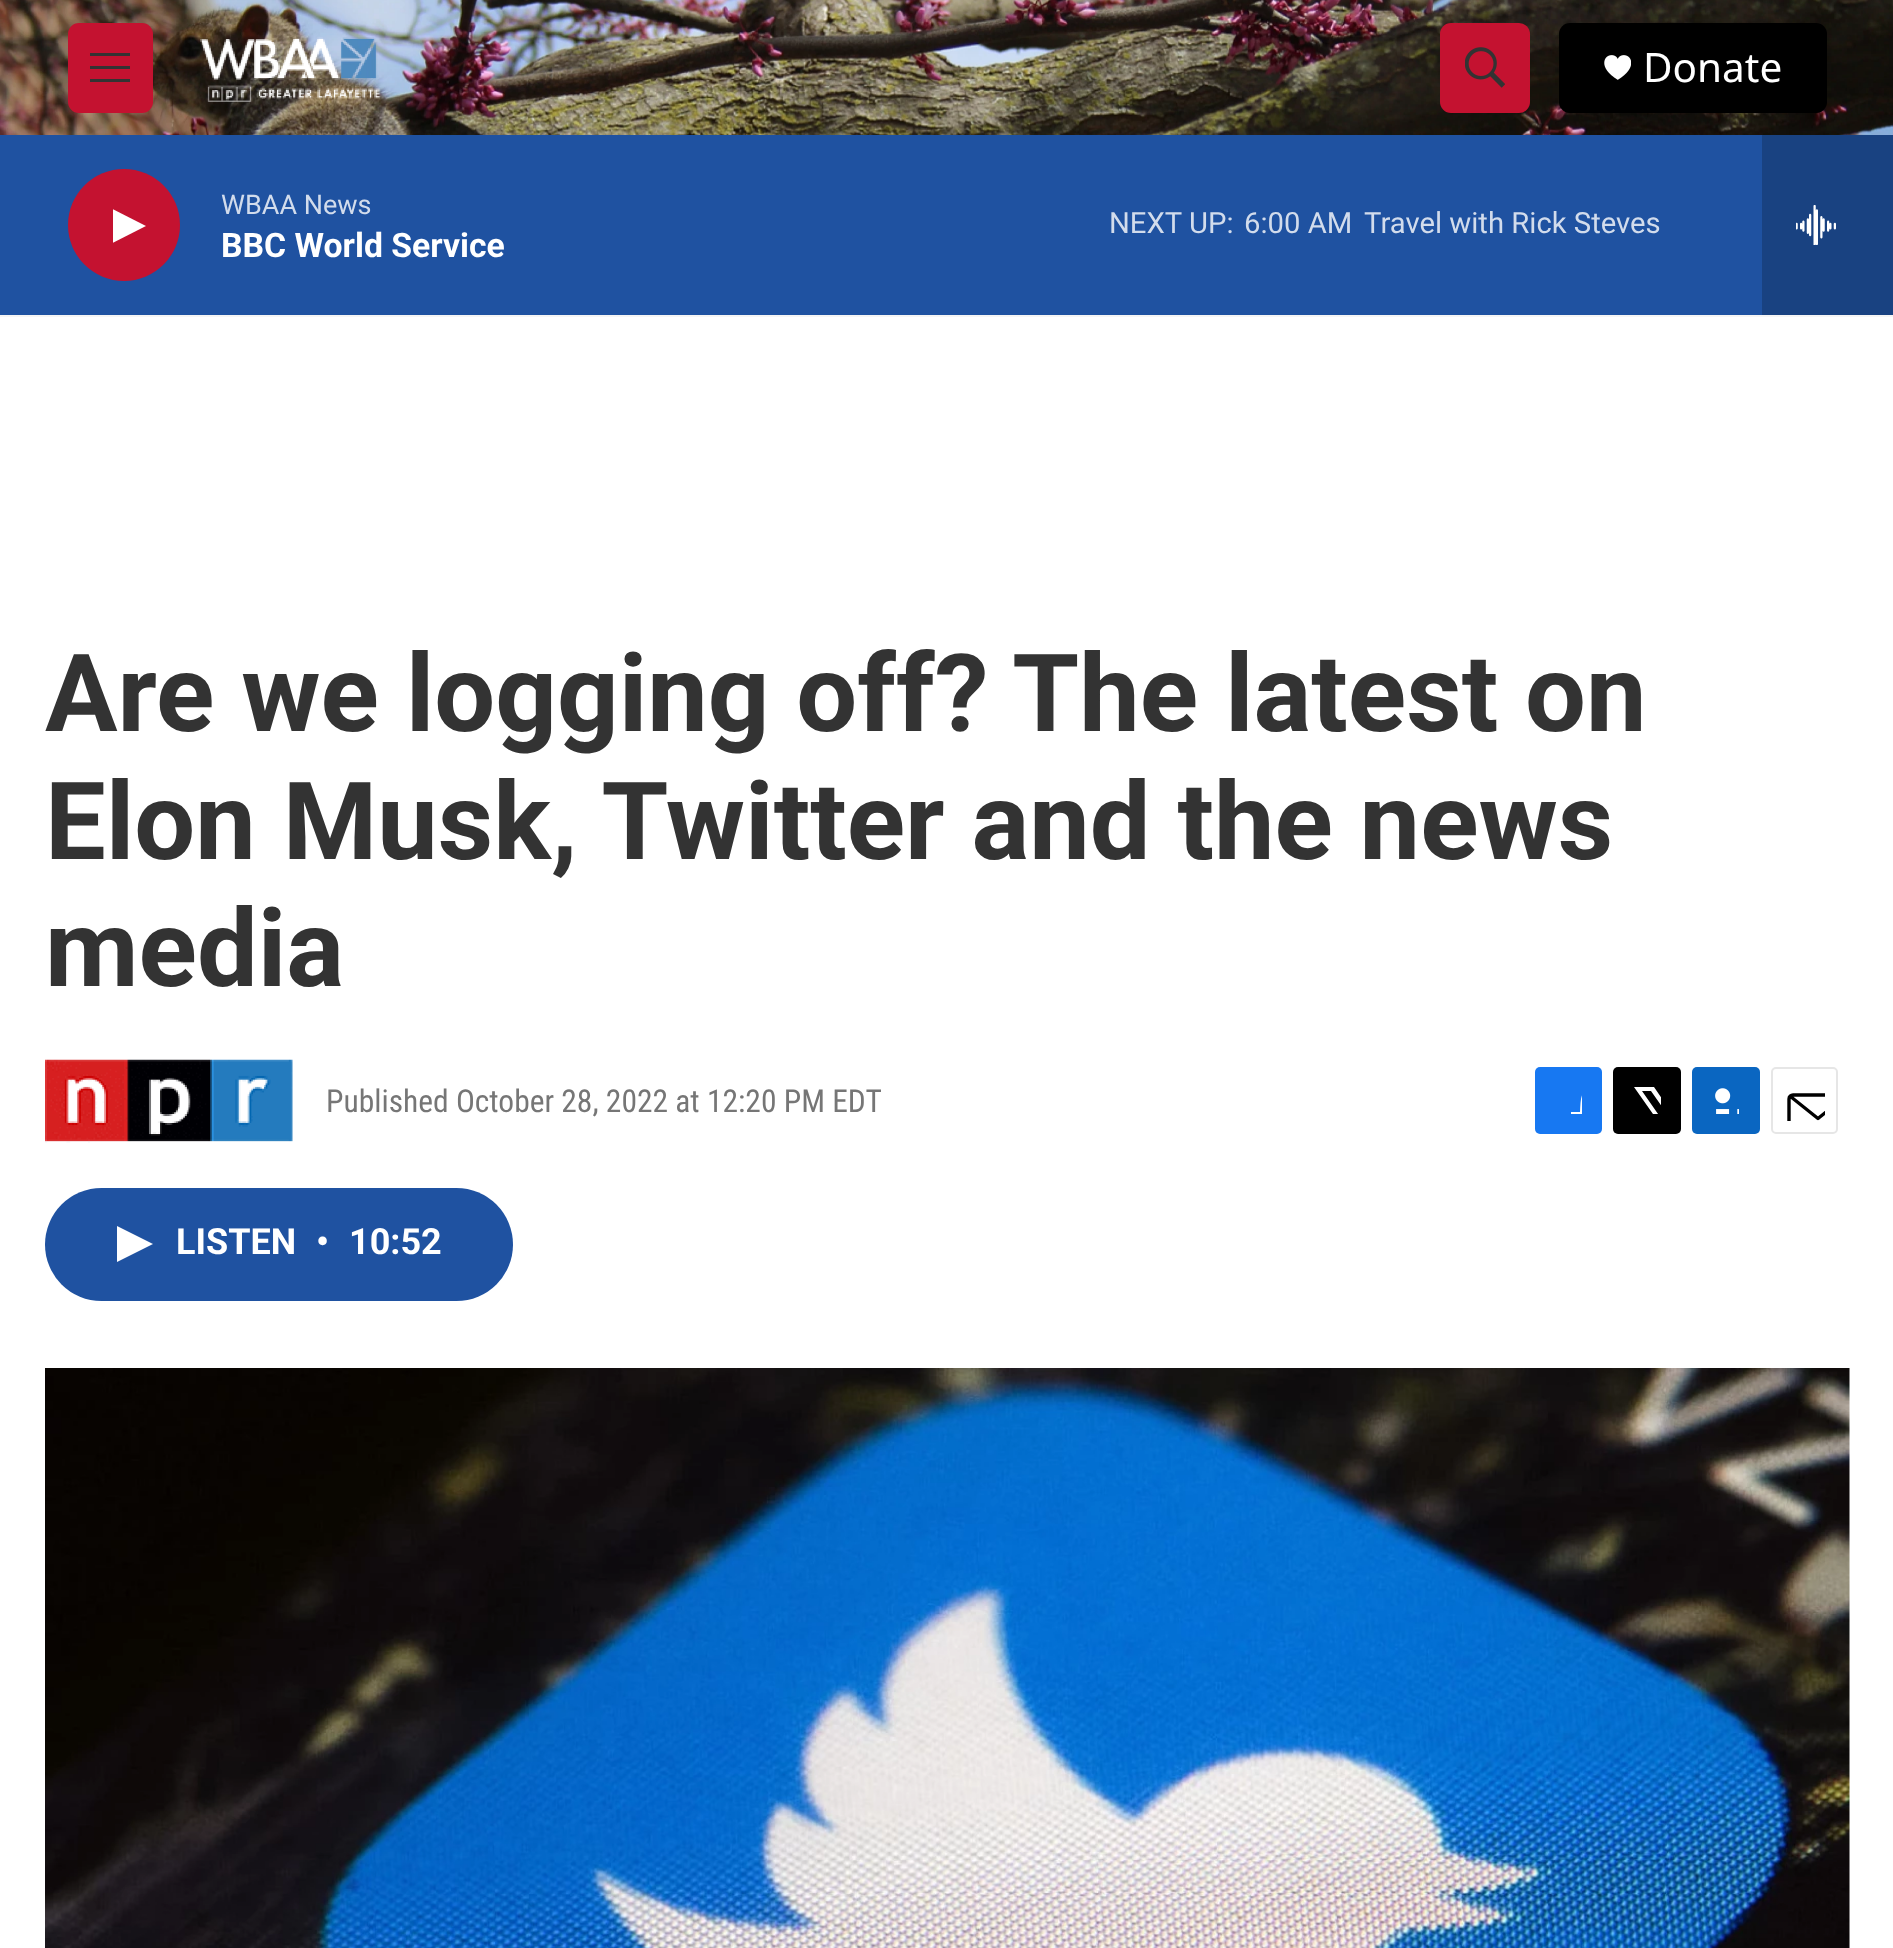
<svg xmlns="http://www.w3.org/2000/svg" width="1893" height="1948">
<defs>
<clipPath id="clip1"><rect x="113" y="205" width="33" height="43"/></clipPath>
<clipPath id="clip2"><rect x="1555" y="1087" width="27" height="27"/></clipPath>
<clipPath id="clip3"><rect x="1634" y="1087" width="27" height="27"/></clipPath>
<clipPath id="clip4"><rect x="1784" y="1080" width="41" height="41"/></clipPath>
</defs>
<rect width="100%" height="100%" fill="#fff"/>
<rect y="315" width="1893" height="2" fill="#f5f5f5"/>
<image x="0" y="0" width="1893" height="135" href="media/1.png"/>
<rect x="68" y="23" width="85" height="90" rx="11" fill="#c41230"/>
<path d="M90 69v-3h40v3zm0-13v-3h40v3zm0 26v-3h40v3z" fill="#333" fill-rule="evenodd"/>
<image x="200" y="37" width="181" height="65" href="media/2.png"/>
<rect x="1440" y="23" width="90" height="90" rx="11" fill="#c41230"/>
<image x="1465" y="47" width="40" height="41" href="media/3.png"/>
<rect x="1559" y="23" width="268" height="90" rx="11" fill="#000"/>
<image x="1604" y="55" width="27" height="25" href="media/4.png"/>
<text x="1643" y="82" style="font-family:Noto Sans;font-size:40.5px;fill:#fff">Donate</text>
<rect y="135" width="1762" height="180" fill="#1f52a1"/>
<circle cx="124" cy="225" r="56" fill="#c41230"/>
<g clip-path="url(#clip1)">
<path d="M112.5 209l33.5 17l-33.5 17z" fill="#fff"/>
</g>
<text x="221" y="214" style="font-family:Roboto;font-size:27px;fill:#d2dcec">WBAA News</text>
<text x="221" y="257" style="font-family:'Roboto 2';font-size:33.75px;font-weight:bold;fill:#fff">BBC World Service</text>
<text x="1109" y="233" style="font-family:Roboto;font-size:29.25px;fill:#d2dcec">NEXT UP:</text>
<text x="1244" y="233" style="font-family:Roboto;font-size:29.25px;fill:#d2dcec">6:00 AM</text>
<text x="1364" y="233" style="font-family:Roboto;font-size:29.25px;fill:#d2dcec">Travel with Rick Steves</text>
<rect x="1762" y="135" width="131" height="180" fill="#194281"/>
<image x="1796" y="205" width="40" height="40" href="media/5.png"/>
<text x="45" y="731" style="font-family:Roboto;font-size:108px;font-weight:bold;fill:#333">Are we logging off? The latest on</text>
<text x="45" y="859" style="font-family:Roboto;font-size:108px;font-weight:bold;fill:#333">Elon Musk, Twitter and the news</text>
<text x="45" y="986" style="font-family:Roboto;font-size:108px;font-weight:bold;fill:#333">media</text>
<image x="45" y="1059" width="248" height="84" href="media/6.png"/>
<text x="326" y="1112" style="font-family:Roboto Condensed;font-size:31.5px;fill:#767676">Published October 28, 2022 at 12:20 PM EDT</text>
<rect x="1535" y="1067" width="67" height="67" rx="5" fill="#1778f2"/>
<g clip-path="url(#clip2)">
<path d="M1592 1134h-12v-11h-9v-11h9c1-17 0-26 22-24v10c-13 0-10 4-10 14h10v6l-1 5h-9z" fill="#fff"/>
</g>
<rect x="1613" y="1067" width="68" height="67" rx="5" fill="#000"/>
<g clip-path="url(#clip3)">
<path d="M1674 1115l7 11c0 2 0 4-1 6l-29-41h-9l30 43h-5l-4-6l-5 6h-7l9-10l-26-37h20l17 25l10-12v7z" fill="#fff"/>
</g>
<rect x="1692" y="1067" width="68" height="67" rx="5" fill="#0a66c1"/>
<image x="1715" y="1088" width="24" height="26" href="media/7.png"/>
<rect x="1772" y="1068" width="65" height="65" rx="4" fill="none" stroke="#e6e6e6" stroke-width="2"/>
<g clip-path="url(#clip4)">
<path d="M1847 1129.5c0 2-2 4-4 4h-50c-2 0-4-2-4-4v-30.5c0-2.5 2-4 4-4h50c2 0 4 1.5 4 4zm-1.5-33l-27.5 22l-27.5-22" fill="none" stroke="#000" stroke-width="3.4" stroke-linecap="round" stroke-linejoin="round"/>
</g>
<rect x="45" y="1188" width="468" height="113" rx="56.5" fill="#1f52a1"/>
<path d="M117 1226l36 18l-36 18z" fill="#fff"/>
<text x="176" y="1254" style="font-family:'Roboto 2';font-size:36px;font-weight:bold;fill:#fff">LISTEN</text>
<text x="316" y="1254" style="font-family:'Roboto 2';font-size:36px;font-weight:bold;fill:#fff">•</text>
<text x="349" y="1254" style="font-family:'Roboto 2';font-size:36px;font-weight:bold;fill:#fff">10:52</text>
<image x="45" y="1368" width="1805" height="580" href="media/8.png"/>
</svg>
